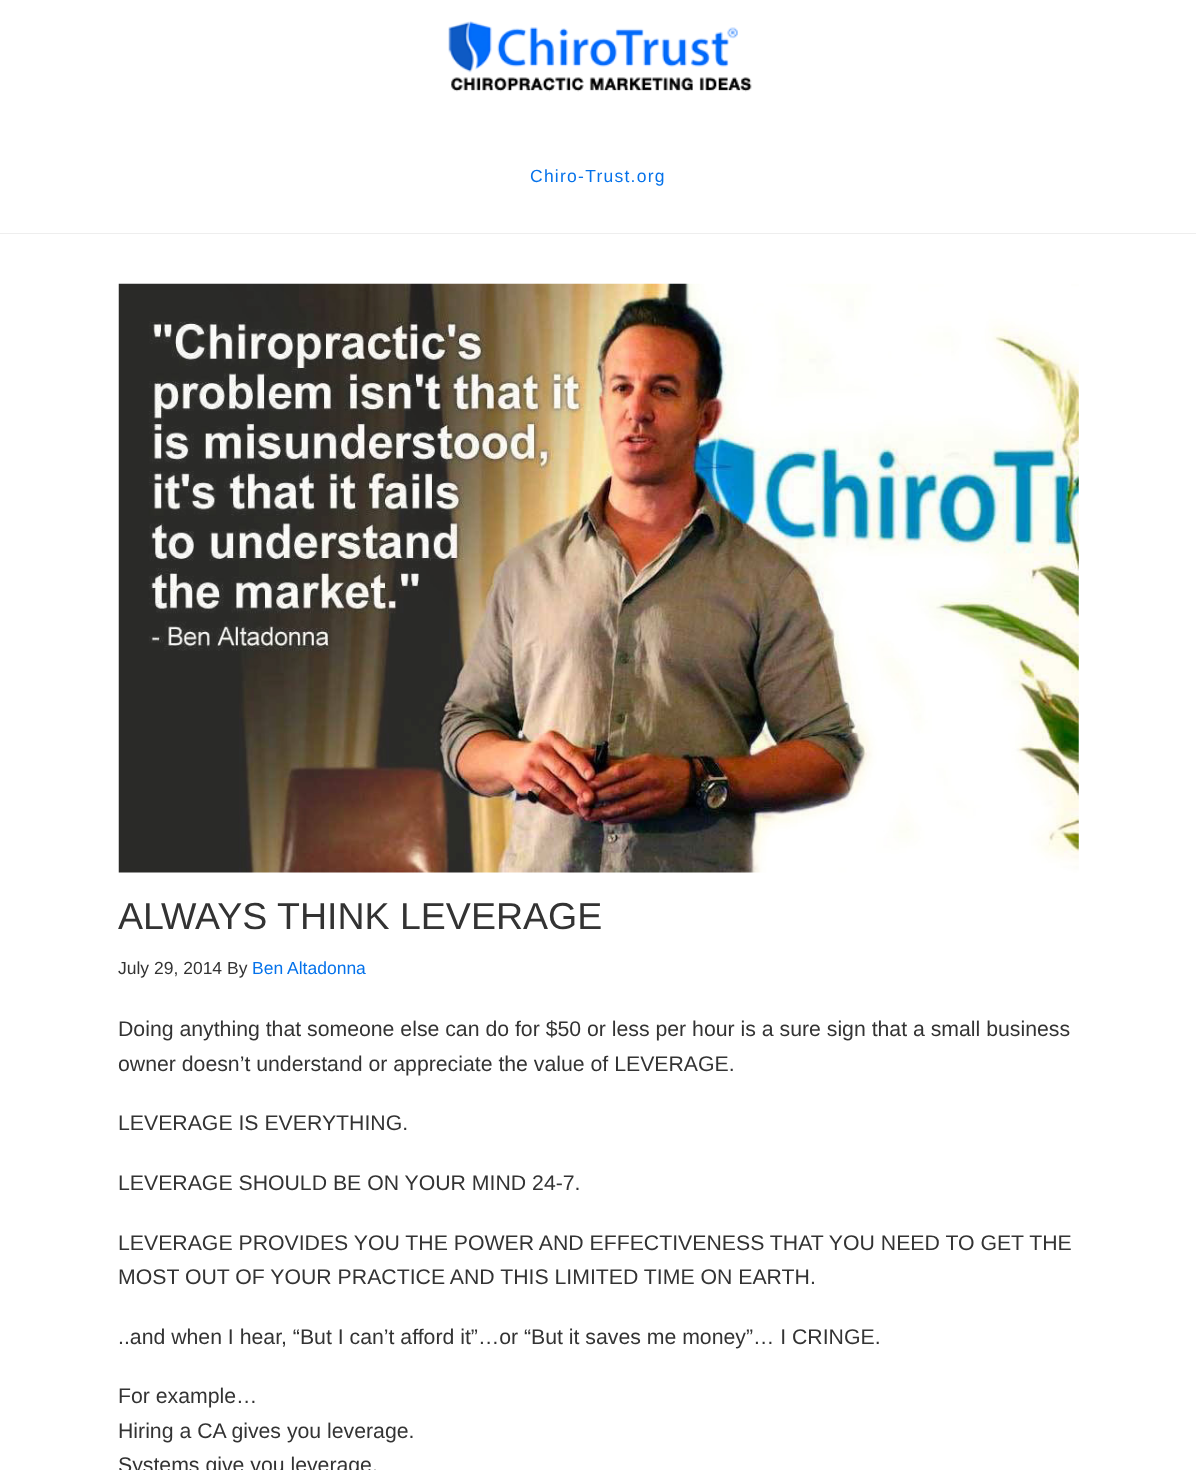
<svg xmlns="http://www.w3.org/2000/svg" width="1196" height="1470">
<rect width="100%" height="100%" fill="#fff"/>
<rect y="233" width="1196" height="1" fill="#eee"/>
<image x="448" y="21" width="304" height="71" href="media/1.png"/>
<text x="530" y="182" style="font-family:Liberation Sans;font-size:17.5px;letter-spacing:1.25px;fill:#0572ea">Chiro-Trust.org</text>
<image x="118" y="283" width="961" height="590" href="media/2.png"/>
<text x="118" y="929" style="font-family:Liberation Sans;font-size:37.5px;fill:#333">ALWAYS THINK LEVERAGE</text>
<text x="118" y="974" style="font-family:Liberation Sans;font-size:17.5px;fill:#333">July 29, 2014 By</text>
<text x="252" y="974" style="font-family:Liberation Sans;font-size:17.5px;fill:#0572ea">Ben Altadonna</text>
<text x="118" y="1036" style="font-family:Liberation Sans;font-size:21.25px;fill:#333">Doing anything that someone else can do for $50 or less per hour is a sure sign that a small business</text>
<text x="118" y="1071" style="font-family:Liberation Sans;font-size:21.25px;fill:#333">owner doesn’t understand or appreciate the value of LEVERAGE.</text>
<text x="118" y="1130" style="font-family:Liberation Sans;font-size:21.25px;fill:#333">LEVERAGE IS EVERYTHING.</text>
<text x="118" y="1190" style="font-family:Liberation Sans;font-size:21.25px;fill:#333">LEVERAGE SHOULD BE ON YOUR MIND 24-7.</text>
<text x="118" y="1250" style="font-family:Liberation Sans;font-size:21.25px;fill:#333">LEVERAGE PROVIDES YOU THE POWER AND EFFECTIVENESS THAT YOU NEED TO GET THE</text>
<text x="118" y="1284" style="font-family:Liberation Sans;font-size:21.25px;fill:#333">MOST OUT OF YOUR PRACTICE AND THIS LIMITED TIME ON EARTH.</text>
<text x="118" y="1344" style="font-family:Liberation Sans;font-size:21.25px;fill:#333">..and when I hear, “But I can’t afford it”…or “But it saves me money”… I CRINGE.</text>
<text x="118" y="1403" style="font-family:Liberation Sans;font-size:21.25px;fill:#333">For example…</text>
<text x="118" y="1438" style="font-family:Liberation Sans;font-size:21.25px;fill:#333">Hiring a CA gives you leverage.</text>
<text x="118" y="1472" style="font-family:Liberation Sans;font-size:21.25px;fill:#333">Systems give you leverage.</text>
</svg>
